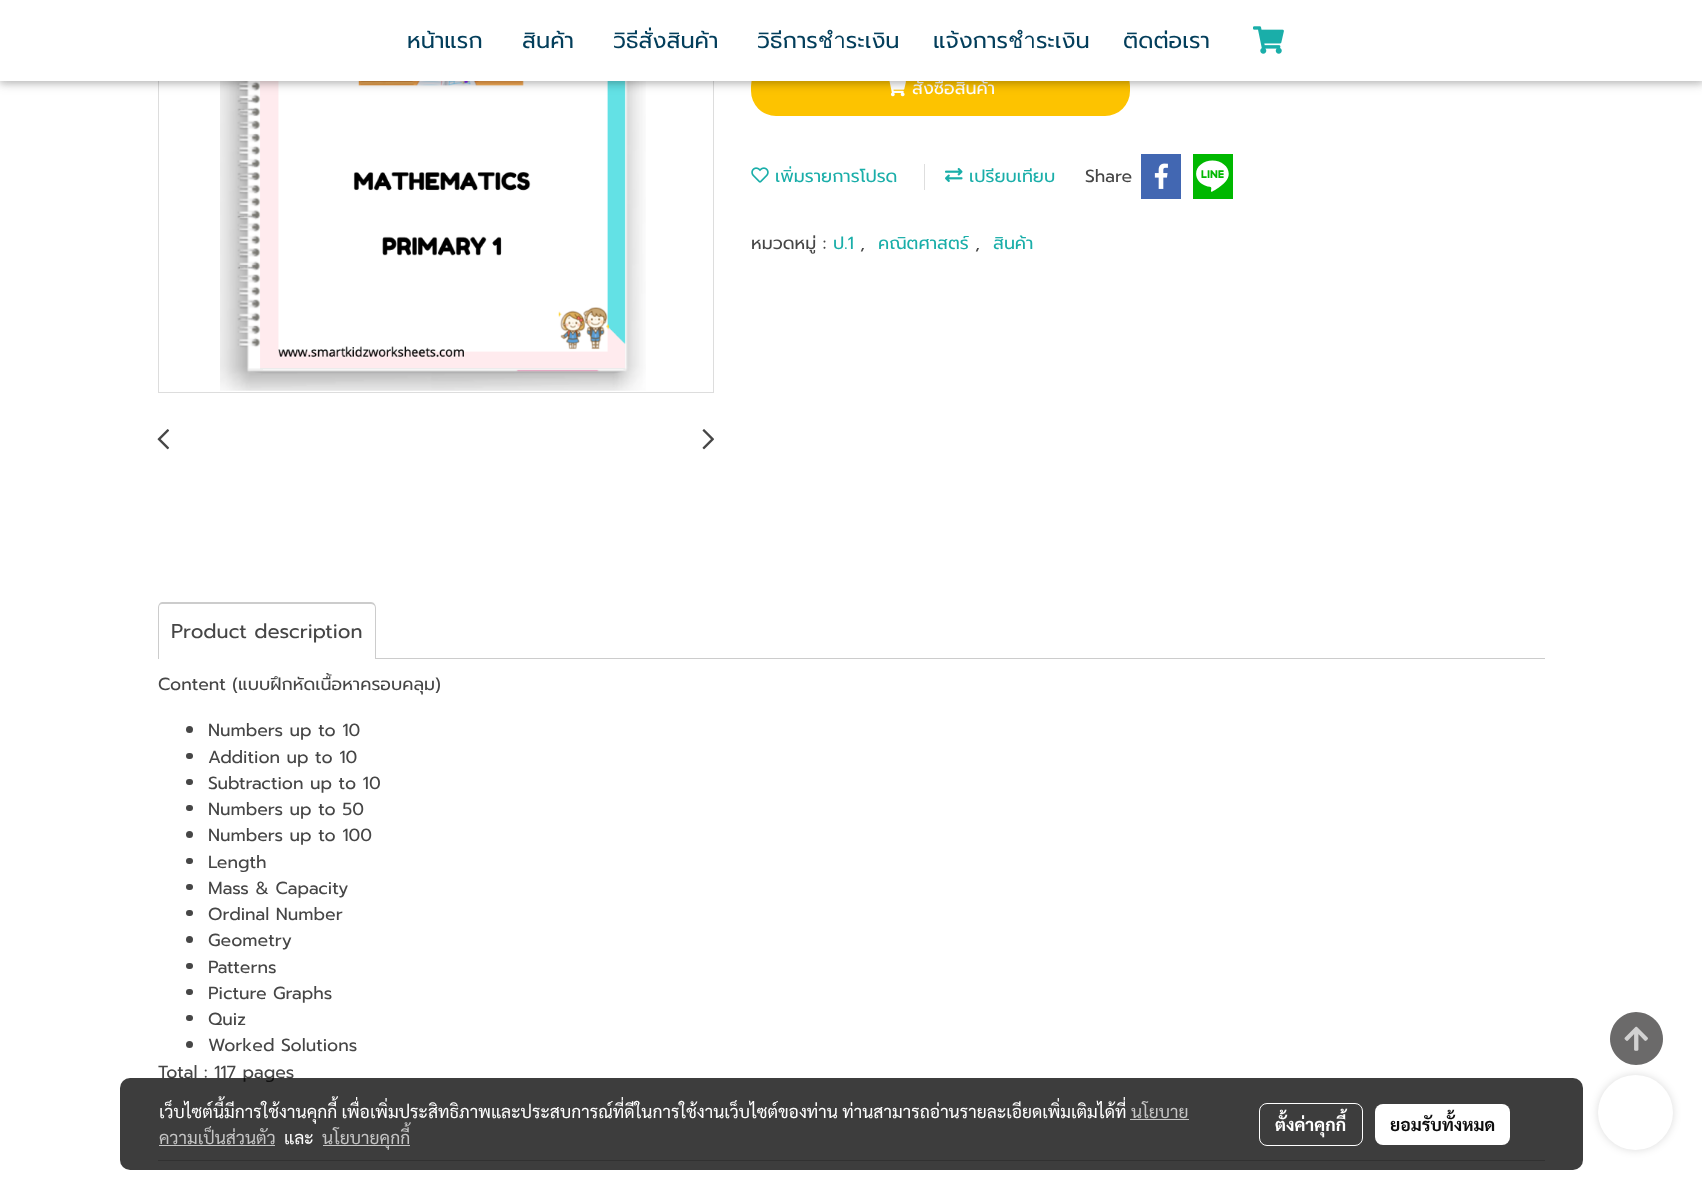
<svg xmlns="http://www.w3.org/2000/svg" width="1702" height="1179">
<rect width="100%" height="100%" fill="#fff"/>
<rect x="158.5" y="-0.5" width="555" height="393" fill="none" stroke="#ddd"/>
<image x="220" y="81" width="426" height="310" href="media/2.png"/>
<rect x="751" y="61" width="379" height="55" rx="25" fill="#fdc300"/>
<text x="912" y="94" style="font-family:Prompt;font-size:17.5px;fill:#fff">สั่งซื้อสินค้า</text>
<image x="889" y="81" width="17" height="16" href="media/5.png"/>
<rect y="3" width="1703" height="81" fill="#0000001f" filter="blur(6px)"/>
<rect y="3" width="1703" height="81" fill="#00000029" filter="blur(3px)"/>
<rect width="1702" height="81" fill="#fff"/>
<text x="407" y="48" style="font-family:Prompt;font-size:22.5px;fill:#033e5b">หน้าแรก</text>
<text x="522" y="48" style="font-family:Prompt;font-size:22.5px;fill:#033e5b">สินค้า</text>
<text x="613" y="48" style="font-family:Prompt;font-size:22.5px;fill:#033e5b">วิธีสั่งสินค้า</text>
<text x="757" y="48" style="font-family:Prompt;font-size:22.5px;fill:#033e5b">วิธีการชำระเงิน</text>
<text x="933" y="48" style="font-family:Prompt;font-size:22.5px;fill:#033e5b">แจ้งการชำระเงิน</text>
<text x="1123" y="48" style="font-family:Prompt;font-size:22.5px;fill:#033e5b">ติดต่อเรา</text>
<image x="1253" y="26" width="31" height="28" href="media/1.png"/>
<image x="157" y="429" width="13" height="21" href="media/3.png"/>
<image x="702" y="429" width="12" height="21" href="media/4.png"/>
<image x="751" y="167" width="18" height="16" href="media/6.png"/>
<text x="775" y="182" style="font-family:Prompt;font-size:17.5px;fill:#1aaea9">เพิ่มรายการโปรด</text>
<rect x="924" y="164" width="1" height="26" fill="#dedede"/>
<image x="945" y="167" width="18" height="16" href="media/7.png"/>
<text x="969" y="182" style="font-family:Prompt;font-size:17.5px;fill:#1aaea9">เปรียบเทียบ</text>
<text x="1085" y="182" style="font-family:Prompt;font-size:17.5px;fill:#464646">Share</text>
<rect x="1141" y="154" width="40" height="45" fill="#4267b2"/>
<image x="1154" y="163" width="14" height="26" href="media/8.png"/>
<rect x="1193" y="154" width="40" height="45" fill="#00b800"/>
<image x="1196" y="160" width="33" height="32" href="media/9.png"/>
<text x="751" y="249" style="font-family:Prompt;font-size:17.5px;fill:#464646">หมวดหมู่ :</text>
<text x="833" y="249" style="font-family:Prompt;font-size:17.5px;fill:#1aaea9">ป.1</text>
<text x="860" y="249" style="font-family:Prompt;font-size:17.5px;fill:#464646">,</text>
<text x="878" y="249" style="font-family:Prompt;font-size:17.5px;fill:#1aaea9">คณิตศาสตร์</text>
<text x="975" y="249" style="font-family:Prompt;font-size:17.5px;fill:#464646">,</text>
<text x="993" y="249" style="font-family:Prompt;font-size:17.5px;fill:#1aaea9">สินค้า</text>
<path d="M162 602h209c3 0 5 3 5 6v51h-218v-51c0-3 2-6 4-6zm0 2h209c2 0 4 1 4 4v51h-216v-51c0-3 1-4 3-4z" fill="#ccc" fill-rule="evenodd"/>
<text x="171" y="638" style="font-family:Prompt;font-size:20px;fill:#464646">Product description</text>
<rect x="376" y="658" width="1169" height="1" fill="#ccc"/>
<text x="158" y="690" style="font-family:Prompt;font-size:17.5px;fill:#464646">Content (แบบฝึกหัดเนื้อหาครอบคลุม)</text>
<circle cx="189.5" cy="729.5" r="3.5" fill="#464646"/>
<text x="208" y="736" style="font-family:Prompt;font-size:17.5px;fill:#464646">Numbers up to 10</text>
<rect x="186" y="753" width="7" height="6" rx="3" fill="#464646"/>
<text x="208" y="763" style="font-family:Prompt;font-size:17.5px;fill:#464646">Addition up to 10</text>
<rect x="186" y="779" width="7" height="6" rx="3" fill="#464646"/>
<text x="208" y="789" style="font-family:Prompt;font-size:17.5px;fill:#464646">Subtraction up to 10</text>
<rect x="186" y="805" width="7" height="6" rx="3" fill="#464646"/>
<text x="208" y="815" style="font-family:Prompt;font-size:17.5px;fill:#464646">Numbers up to 50</text>
<circle cx="189.5" cy="834.5" r="3.5" fill="#464646"/>
<text x="208" y="841" style="font-family:Prompt;font-size:17.5px;fill:#464646">Numbers up to 100</text>
<rect x="186" y="858" width="7" height="6" rx="3" fill="#464646"/>
<text x="208" y="868" style="font-family:Prompt;font-size:17.5px;fill:#464646">Length</text>
<rect x="186" y="884" width="7" height="6" rx="3" fill="#464646"/>
<text x="208" y="894" style="font-family:Prompt;font-size:17.5px;fill:#464646">Mass &amp; Capacity</text>
<rect x="186" y="910" width="7" height="6" rx="3" fill="#464646"/>
<text x="208" y="920" style="font-family:Prompt;font-size:17.5px;fill:#464646">Ordinal Number</text>
<circle cx="189.5" cy="939.5" r="3.5" fill="#464646"/>
<text x="208" y="946" style="font-family:Prompt;font-size:17.5px;fill:#464646">Geometry</text>
<rect x="186" y="963" width="7" height="6" rx="3" fill="#464646"/>
<text x="208" y="973" style="font-family:Prompt;font-size:17.5px;fill:#464646">Patterns</text>
<rect x="186" y="989" width="7" height="6" rx="3" fill="#464646"/>
<text x="208" y="999" style="font-family:Prompt;font-size:17.5px;fill:#464646">Picture Graphs</text>
<rect x="186" y="1015" width="7" height="6" rx="3" fill="#464646"/>
<text x="208" y="1025" style="font-family:Prompt;font-size:17.5px;fill:#464646">Quiz</text>
<circle cx="189.5" cy="1044.5" r="3.5" fill="#464646"/>
<text x="208" y="1051" style="font-family:Prompt;font-size:17.5px;fill:#464646">Worked Solutions</text>
<text x="158" y="1078" style="font-family:Prompt;font-size:17.5px;fill:#464646">Total : 117 pages</text>
<rect x="158" y="1160" width="1387" height="1" fill="#ccc"/>
<rect x="1598" y="1075" width="75" height="75" rx="37.5" fill="#00000024" filter="blur(4.5px)"/>
<path d="M1636 1012c-14 0-26 12-26 27c0 14 12 26 26 26c15 0 27-12 27-26c0-15-12-27-27-27z" fill="#6b6a6a"/>
<image x="1624" y="1026" width="24" height="25" href="media/10.png"/>
<rect x="120" y="1078" width="1463" height="92" rx="10" fill="#000000c2"/>
<text x="159" y="1118" style="font-family:Sarabun;font-size:17.5px;fill:#fff">เว็บไซต์นี้มีการใช้งานคุกกี้ เพื่อเพิ่มประสิทธิภาพและประสบการณ์ที่ดีในการใช้งานเว็บไซต์ของท่าน ท่านสามารถอ่านรายละเอียดเพิ่มเติมได้ที่</text>
<text x="1131" y="1118" style="font-family:Sarabun;font-size:17.5px;fill:#c5c5c5">นโยบาย</text>
<rect x="1130" y="1119" width="59" height="1" fill="#c5c5c5"/>
<text x="159" y="1144" style="font-family:Sarabun;font-size:17.5px;fill:#c5c5c5">ความเป็นส่วนตัว</text>
<rect x="159" y="1145" width="116" height="1" fill="#c5c5c5"/>
<text x="284" y="1144" style="font-family:Sarabun;font-size:17.5px;fill:#fff">และ</text>
<rect x="323" y="1145" width="87" height="1" fill="#c5c5c5"/>
<text x="322" y="1144" style="font-family:Sarabun;font-size:17.5px;fill:#c5c5c5">นโยบายคุกกี้</text>
<rect x="1259.5" y="1103.5" width="103" height="42" rx="7.5" fill="none" stroke="#fff"/>
<text x="1275" y="1131" style="font-family:Sarabun;font-size:17.5px;font-weight:bold;fill:#fff">ตั้งค่าคุกกี้</text>
<rect x="1375" y="1104" width="135" height="41" rx="8" fill="#fff"/>
<text x="1390" y="1131" style="font-family:Sarabun;font-size:17.5px;font-weight:bold;fill:#0d0d0d">ยอมรับทั้งหมด</text>
<circle cx="1635.5" cy="1112.5" r="37.5" fill="#fff"/>
</svg>
